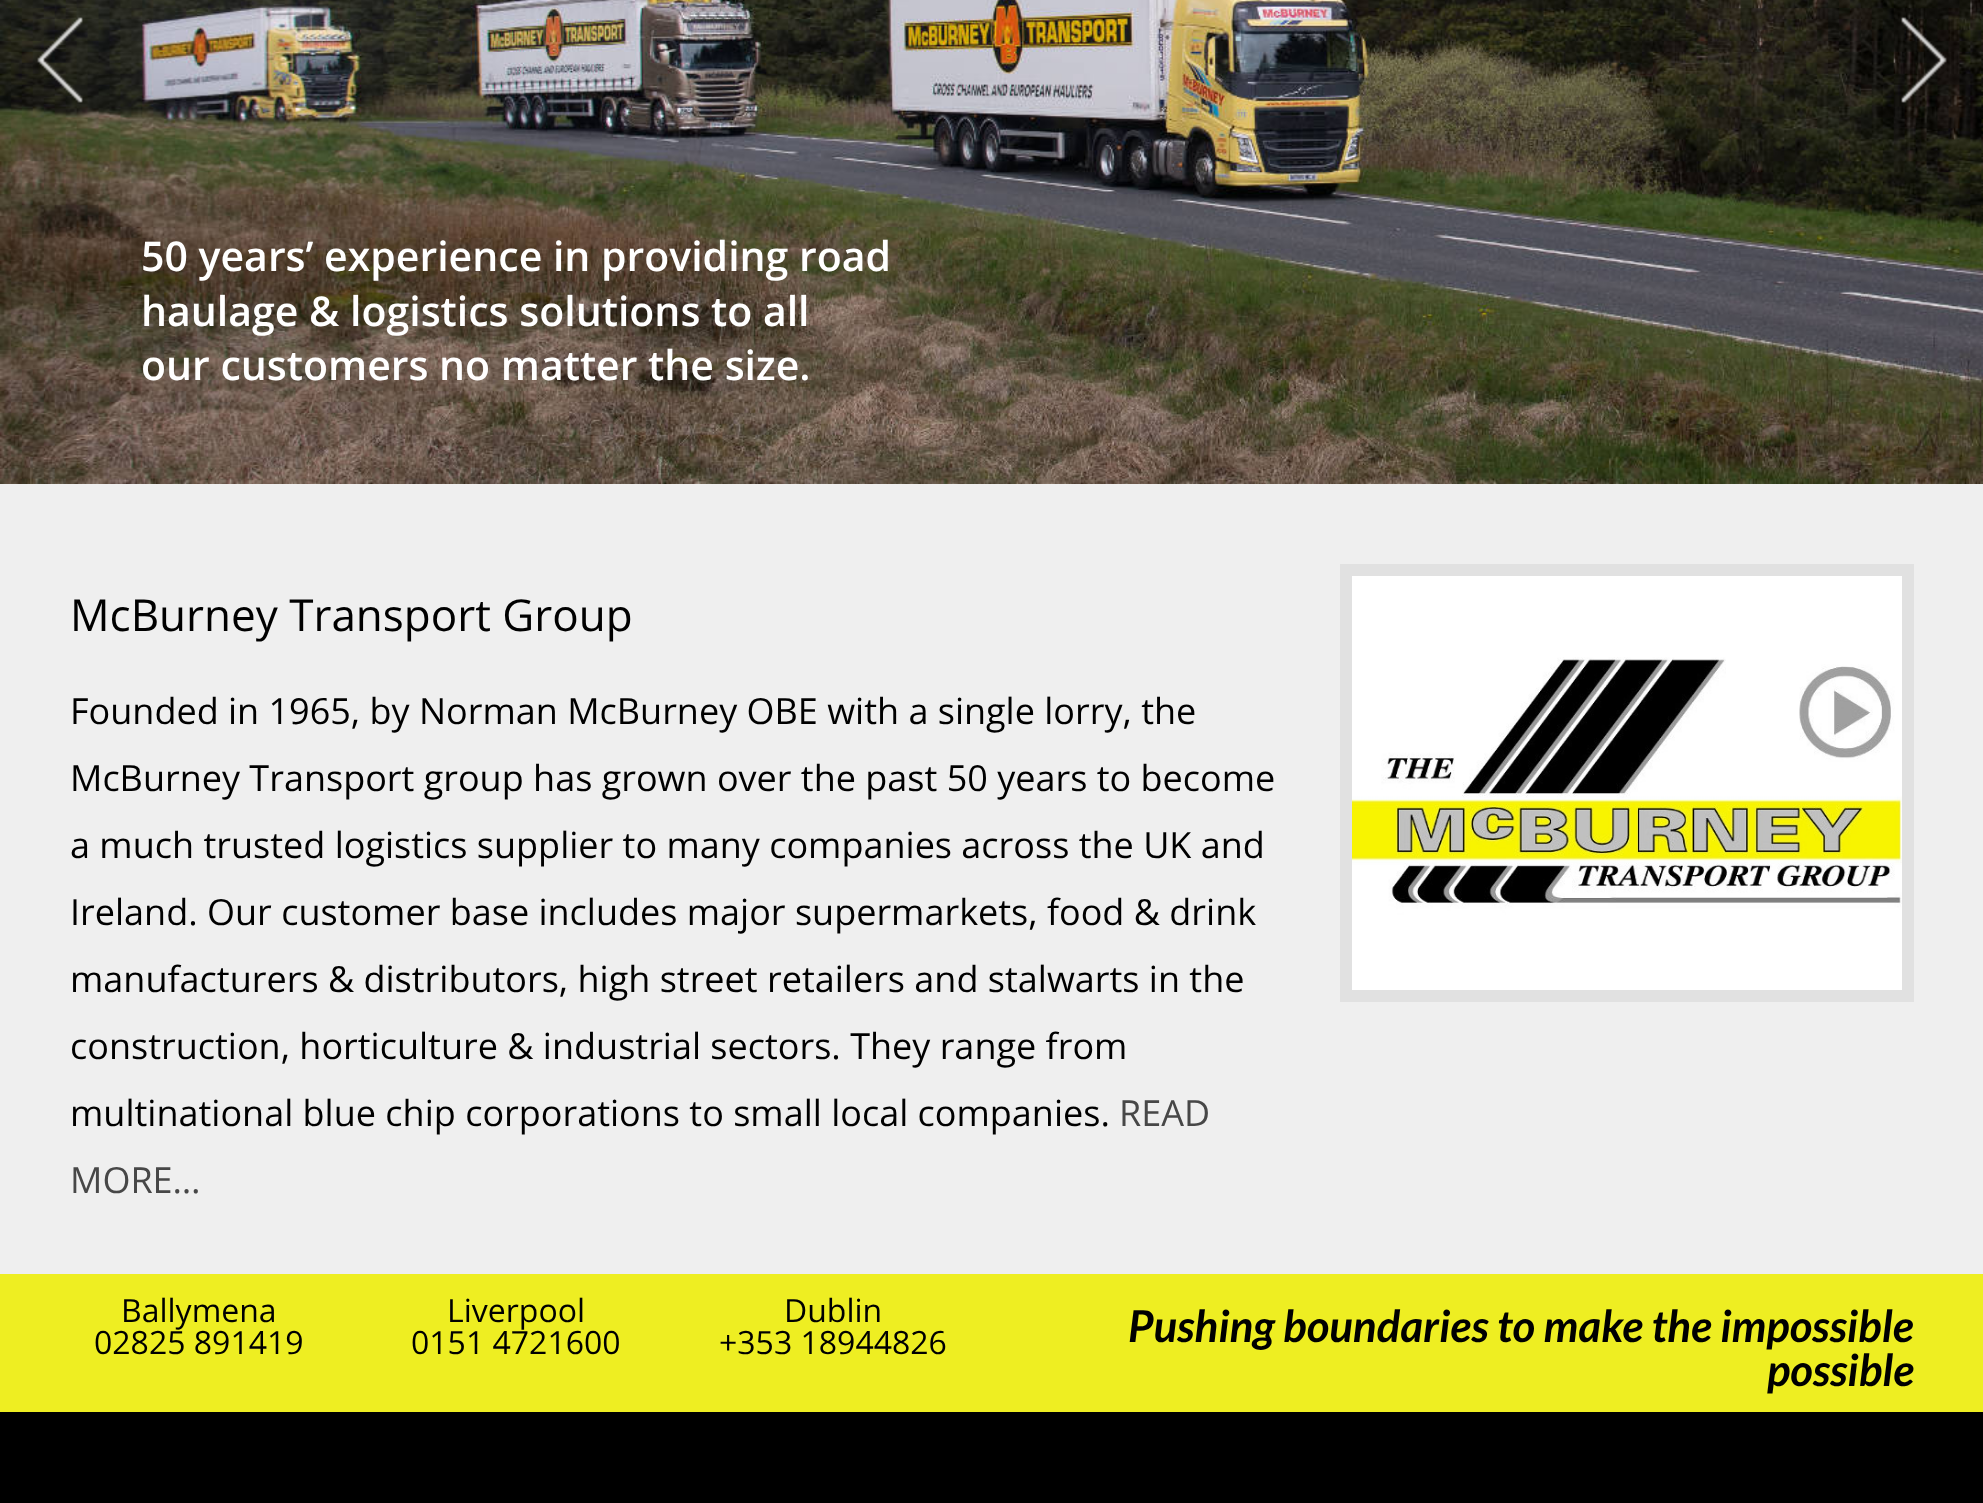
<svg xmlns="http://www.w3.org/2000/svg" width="1983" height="1503">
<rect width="100%" height="100%" fill="#000"/>
<image x="0" y="0" width="1983" height="484" href="media/3.png"/>
<image x="37" y="17" width="46" height="86" href="media/1.png"/>
<image x="1901" y="17" width="46" height="86" href="media/2.png"/>
<text x="141" y="271" style="font-family:Open Sans;font-size:41px;font-weight:600;fill:#fff">50 years’ experience in providing road</text>
<text x="141" y="326" style="font-family:Open Sans;font-size:41px;font-weight:600;fill:#fff">haulage &amp; logistics solutions to all</text>
<text x="141" y="380" style="font-family:Open Sans;font-size:41px;font-weight:600;fill:#fff">our customers no matter the size.</text>
<rect y="484" width="1983" height="790" fill="#efefef"/>
<text x="70" y="631" style="font-family:Open Sans;font-size:44px;fill:#000">McBurney Transport Group</text>
<text x="70" y="724" style="font-family:Open Sans;font-size:36px;fill:#000">Founded in 1965, by Norman McBurney OBE with a single lorry, the</text>
<text x="70" y="791" style="font-family:Open Sans;font-size:36px;fill:#000">McBurney Transport group has grown over the past 50 years to become</text>
<text x="70" y="858" style="font-family:Open Sans;font-size:36px;fill:#000">a much trusted logistics supplier to many companies across the UK and</text>
<text x="70" y="925" style="font-family:Open Sans;font-size:36px;fill:#000">Ireland. Our customer base includes major supermarkets, food &amp; drink</text>
<text x="70" y="992" style="font-family:Open Sans;font-size:36px;fill:#000">manufacturers &amp; distributors, high street retailers and stalwarts in the</text>
<text x="70" y="1059" style="font-family:Open Sans;font-size:36px;fill:#000">construction, horticulture &amp; industrial sectors. They range from</text>
<text x="70" y="1126" style="font-family:Open Sans;font-size:36px;fill:#000">multinational blue chip corporations to small local companies.</text>
<text x="1119" y="1126" style="font-family:Open Sans;font-size:36px;fill:#474747">READ</text>
<text x="70" y="1193" style="font-family:Open Sans;font-size:36px;fill:#474747">MORE…</text>
<rect x="1346" y="570" width="562" height="426" fill="none" stroke="#e1e1e1" stroke-width="12"/>
<image x="1352" y="576" width="550" height="414" href="media/4.png"/>
<rect y="1274" width="1983" height="138" fill="#ee2"/>
<text x="121" y="1322" style="font-family:Open Sans;font-size:32px;fill:#000">Ballymena</text>
<text x="94" y="1354" style="font-family:Open Sans;font-size:32px;fill:#000">02825 891419</text>
<text x="447" y="1322" style="font-family:Open Sans;font-size:32px;fill:#000">Liverpool</text>
<text x="411" y="1354" style="font-family:Open Sans;font-size:32px;fill:#000">0151 4721600</text>
<text x="784" y="1322" style="font-family:Open Sans;font-size:32px;fill:#000">Dublin</text>
<text x="719" y="1354" style="font-family:Open Sans;font-size:32px;fill:#000">+353 18944826</text>
<text x="1128" y="1342" style="font-family:Lato;font-size:44px;font-weight:bold;font-style:italic;fill:#000">Pushing boundaries to make the impossible</text>
<text x="1767" y="1386" style="font-family:Lato;font-size:44px;font-weight:bold;font-style:italic;fill:#000">possible</text>
</svg>
